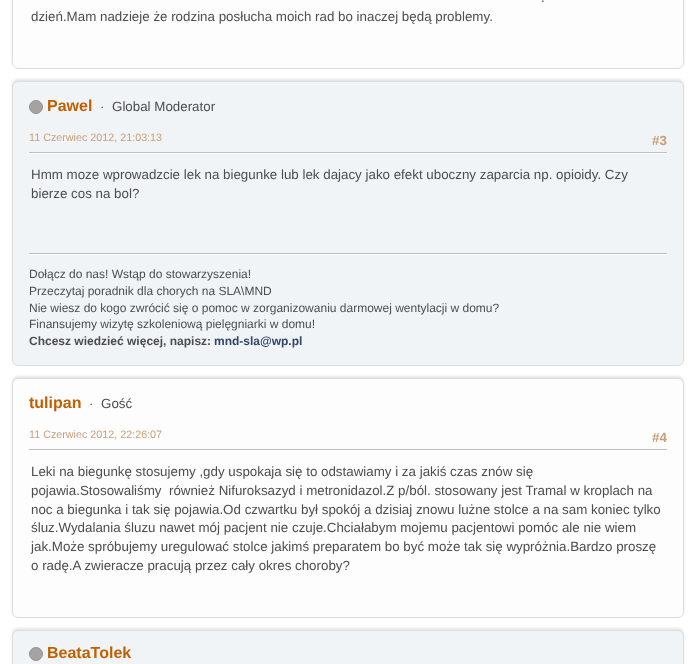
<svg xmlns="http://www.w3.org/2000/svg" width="696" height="664">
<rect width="100%" height="100%" fill="#fff"/>
<rect x="12" y="-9" width="672" height="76" rx="6" fill="#0000001a" filter="blur(1px)"/>
<rect x="12.5" y="-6.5" width="671" height="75" rx="5.5" fill="#fdfdfd" stroke="#ddd"/>
<text x="541" y="2" style="font-family:Liberation Sans;font-size:13.35px;fill:#4d4d4d">.</text>
<text x="31" y="21" style="font-family:Liberation Sans;font-size:13.35px;fill:#4d4d4d">dzień.Mam nadzieje że rodzina posłucha moich rad bo inaczej będą problemy.</text>
<rect x="12" y="79" width="672" height="285" rx="6" fill="#0000001a" filter="blur(1px)"/>
<rect x="12.5" y="81.5" width="671" height="284" rx="5.5" fill="#f0f4f7" stroke="#ddd"/>
<circle cx="36" cy="107" r="6.5" fill="#a7a2a2" stroke="#969292"/>
<text x="47" y="111" style="font-family:Liberation Sans;font-size:16px;font-weight:bold;fill:#c06002">Pawel</text>
<text x="100" y="111" style="font-family:Liberation Sans;font-size:13.35px;fill:#4d4d4d">·</text>
<text x="112" y="111" style="font-family:Liberation Sans;font-size:13.35px;fill:#4d4d4d">Global Moderator</text>
<text x="29" y="141" style="font-family:Liberation Sans;font-size:10.75px;fill:#c8a079">11 Czerwiec 2012, 21:03:13</text>
<text x="652" y="145" style="font-family:Liberation Sans;font-size:13.35px;font-weight:bold;fill:#c8a079">#3</text>
<rect x="29" y="153" width="638" height="1" fill="#fff"/>
<rect x="29" y="152" width="638" height="1" fill="#bfbfbf"/>
<text x="31" y="179" style="font-family:Liberation Sans;font-size:13.35px;fill:#4d4d4d">Hmm moze wprowadzcie lek na biegunke lub lek dajacy jako efekt uboczny zaparcia np. opioidy. Czy</text>
<text x="31" y="198" style="font-family:Liberation Sans;font-size:13.35px;fill:#4d4d4d">bierze cos na bol?</text>
<rect x="29" y="254" width="638" height="1" fill="#fff"/>
<rect x="29" y="253" width="638" height="1" fill="#bfbfbf"/>
<text x="29" y="278" style="font-family:Liberation Sans;font-size:12px;fill:#4d4d4d">Dołącz do nas! Wstąp do stowarzyszenia!</text>
<text x="29" y="295" style="font-family:Liberation Sans;font-size:12px;fill:#4d4d4d">Przeczytaj poradnik dla chorych na SLA\MND</text>
<text x="29" y="312" style="font-family:Liberation Sans;font-size:12px;fill:#4d4d4d">Nie wiesz do kogo zwrócić się o pomoc w zorganizowaniu darmowej wentylacji w domu?</text>
<text x="29" y="328" style="font-family:Liberation Sans;font-size:12px;fill:#4d4d4d">Finansujemy wizytę szkoleniową pielęgniarki w domu!</text>
<text x="29" y="345" style="font-family:Liberation Sans;font-size:12px;font-weight:bold;fill:#4d4d4d">Chcesz wiedzieć więcej, napisz:</text>
<text x="214" y="345" style="font-family:Liberation Sans;font-size:12px;font-weight:bold;fill:#346">mnd-sla@wp.pl</text>
<rect x="12" y="376" width="672" height="240" rx="6" fill="#0000001a" filter="blur(1px)"/>
<rect x="12.5" y="378.5" width="671" height="239" rx="5.5" fill="#fdfdfd" stroke="#ddd"/>
<text x="29" y="408" style="font-family:Liberation Sans;font-size:16px;font-weight:bold;fill:#c06002">tulipan</text>
<text x="89" y="408" style="font-family:Liberation Sans;font-size:13.35px;fill:#4d4d4d">·</text>
<text x="101" y="408" style="font-family:Liberation Sans;font-size:13.35px;fill:#4d4d4d">Gość</text>
<text x="29" y="438" style="font-family:Liberation Sans;font-size:10.75px;fill:#c8a079">11 Czerwiec 2012, 22:26:07</text>
<text x="652" y="442" style="font-family:Liberation Sans;font-size:13.35px;font-weight:bold;fill:#c8a079">#4</text>
<rect x="29" y="449" width="638" height="1" fill="#bfbfbf"/>
<text x="31" y="476" style="font-family:Liberation Sans;font-size:13.35px;fill:#4d4d4d">Leki na biegunkę stosujemy ,gdy uspokaja się to odstawiamy i za jakiś czas znów się</text>
<text x="31" y="495" style="font-family:Liberation Sans;font-size:13.35px;fill:#4d4d4d" xml:space="preserve">pojawia.Stosowaliśmy  również Nifuroksazyd i metronidazol.Z p/ból. stosowany jest Tramal w kroplach na</text>
<text x="31" y="514" style="font-family:Liberation Sans;font-size:13.35px;fill:#4d4d4d">noc a biegunka i tak się pojawia.Od czwartku był spokój a dzisiaj znowu lużne stolce a na sam koniec tylko</text>
<text x="31" y="532" style="font-family:Liberation Sans;font-size:13.35px;fill:#4d4d4d">śluz.Wydalania śluzu nawet mój pacjent nie czuje.Chciałabym mojemu pacjentowi pomóc ale nie wiem</text>
<text x="31" y="551" style="font-family:Liberation Sans;font-size:13.35px;fill:#4d4d4d">jak.Może spróbujemy uregulować stolce jakimś preparatem bo być może tak się wypróżnia.Bardzo proszę</text>
<text x="31" y="570" style="font-family:Liberation Sans;font-size:13.35px;fill:#4d4d4d">o radę.A zwieracze pracują przez cały okres choroby?</text>
<rect x="12" y="628" width="672" height="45" rx="6" fill="#0000001a" filter="blur(1px)"/>
<rect x="12.5" y="630.5" width="671" height="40" rx="5.5" fill="#f0f4f7" stroke="#ddd"/>
<circle cx="36" cy="654" r="6.5" fill="#a7a2a2" stroke="#969292"/>
<text x="47" y="658" style="font-family:Liberation Sans;font-size:16px;font-weight:bold;fill:#c06002">BeataTolek</text>
</svg>
